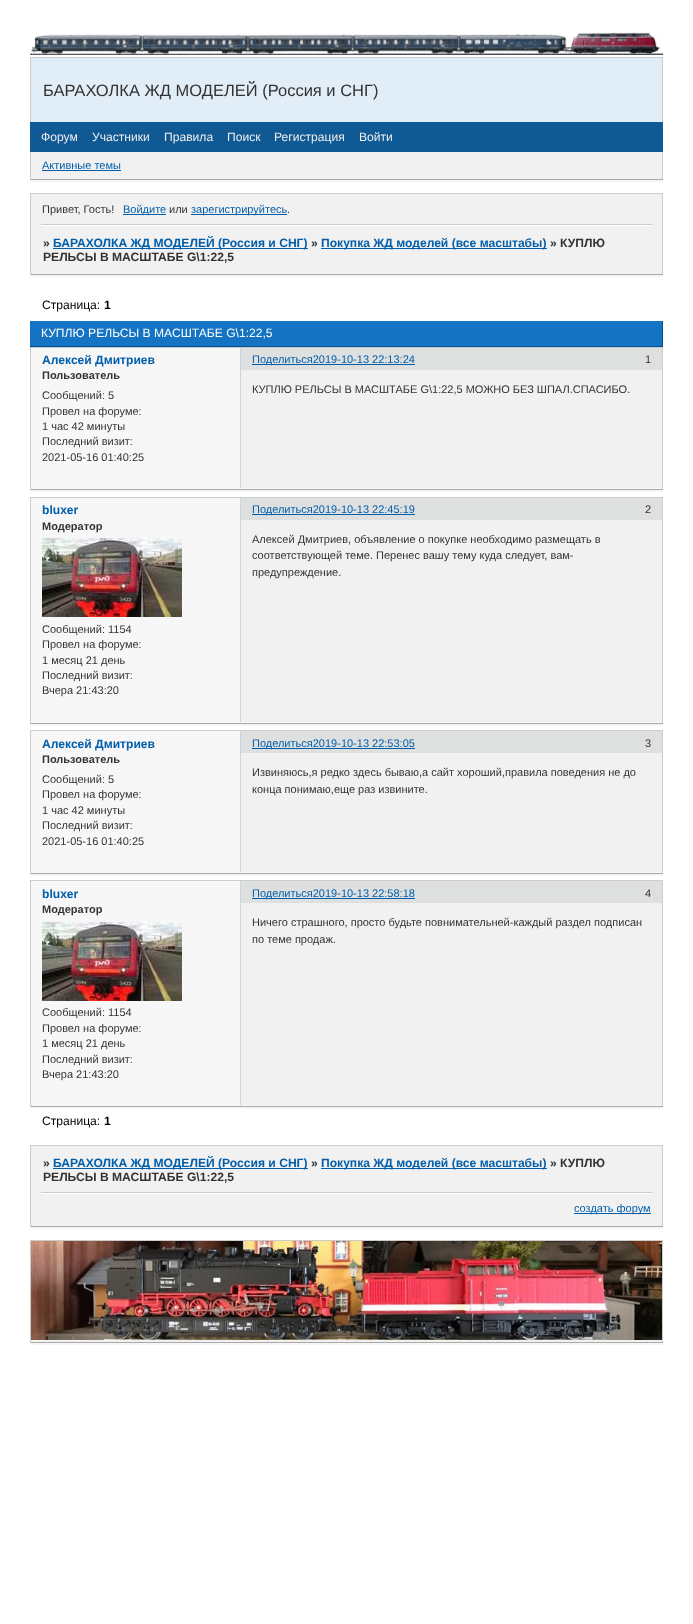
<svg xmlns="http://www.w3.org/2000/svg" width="693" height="1624">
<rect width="100%" height="100%" fill="#fff"/>
<image x="30" y="32" width="633" height="23" href="media/1.png"/>
<rect x="31" y="58" width="631" height="64" fill="#e1edf7"/>
<rect x="30" y="57" width="633" height="1" fill="#ccc"/>
<rect x="662" y="57" width="1" height="65" fill="#ccc"/>
<rect x="30" y="57" width="1" height="65" fill="#ccc"/>
<text x="43" y="96" style="font-family:Liberation Sans;font-size:16.5px;fill:#333">БАРАХОЛКА ЖД МОДЕЛЕЙ (Россия и СНГ)</text>
<rect x="30" y="122" width="633" height="30" fill="#0f5995"/>
<text x="41" y="141" style="font-family:Liberation Sans;font-size:12.1px;fill:#eee">Форум</text>
<text x="92" y="141" style="font-family:Liberation Sans;font-size:12.1px;fill:#eee">Участники</text>
<text x="164" y="141" style="font-family:Liberation Sans;font-size:12.1px;fill:#eee">Правила</text>
<text x="227" y="141" style="font-family:Liberation Sans;font-size:12.1px;fill:#eee">Поиск</text>
<text x="274" y="141" style="font-family:Liberation Sans;font-size:12.1px;fill:#eee">Регистрация</text>
<text x="359" y="141" style="font-family:Liberation Sans;font-size:12.1px;fill:#eee">Войти</text>
<rect x="30" y="180" width="633" height="2" fill="#f5f5f5"/>
<rect x="31" y="152" width="631" height="27" fill="#f1f1f1"/>
<rect x="662" y="152" width="1" height="28" fill="#ccc"/>
<rect x="30" y="179" width="633" height="1" fill="#aaa"/>
<rect x="30" y="152" width="1" height="28" fill="#ccc"/>
<text x="42" y="169" style="font-family:Liberation Sans;font-size:11px;fill:#005eab">Активные темы</text>
<rect x="42" y="170" width="79" height="1" fill="#005eab"/>
<rect x="31" y="194" width="631" height="80" fill="#f1f1f1"/>
<rect x="30" y="193" width="633" height="1" fill="#ccc"/>
<rect x="662" y="193" width="1" height="82" fill="#ccc"/>
<rect x="30" y="193" width="1" height="33" fill="#ccc"/>
<text x="42" y="213" style="font-family:Liberation Sans;font-size:11px;fill:#333">Привет, Гость!</text>
<rect x="123" y="214" width="43" height="1" fill="#005eab"/>
<text x="123" y="213" style="font-family:Liberation Sans;font-size:11px;fill:#005eab">Войдите</text>
<text x="169" y="213" style="font-family:Liberation Sans;font-size:11px;fill:#333">или</text>
<rect x="191" y="214" width="96" height="1" fill="#005eab"/>
<text x="191" y="213" style="font-family:Liberation Sans;font-size:11px;fill:#005eab">зарегистрируйтесь</text>
<text x="287" y="213" style="font-family:Liberation Sans;font-size:11px;fill:#333">.</text>
<rect x="41" y="224" width="611" height="1" fill="#ccc"/>
<rect x="41" y="225" width="611" height="1" fill="#fff"/>
<rect x="30" y="275" width="633" height="2" fill="#f5f5f5"/>
<rect x="30" y="274" width="633" height="1" fill="#aaa"/>
<rect x="30" y="224" width="1" height="51" fill="#ccc"/>
<text x="43" y="247" style="font-family:Liberation Sans;font-size:12.1px;font-weight:bold;fill:#333">»</text>
<rect x="53" y="248" width="255" height="1" fill="#005eab"/>
<text x="53" y="247" style="font-family:Liberation Sans;font-size:12.1px;font-weight:bold;fill:#005eab">БАРАХОЛКА ЖД МОДЕЛЕЙ (Россия и СНГ)</text>
<text x="311" y="247" style="font-family:Liberation Sans;font-size:12.1px;font-weight:bold;fill:#333">»</text>
<rect x="321" y="248" width="226" height="1" fill="#005eab"/>
<text x="321" y="247" style="font-family:Liberation Sans;font-size:12.1px;font-weight:bold;fill:#005eab">Покупка ЖД моделей (все масштабы)</text>
<text x="550" y="247" style="font-family:Liberation Sans;font-size:12.1px;font-weight:bold;fill:#333">» КУПЛЮ</text>
<text x="43" y="261" style="font-family:Liberation Sans;font-size:12.1px;font-weight:bold;fill:#333">РЕЛЬСЫ В МАСШТАБЕ G\1:22,5</text>
<text x="42" y="309" style="font-family:Liberation Sans;font-size:12.1px;fill:#000">Страница:</text>
<text x="104" y="309" style="font-family:Liberation Sans;font-size:12.1px;font-weight:bold;fill:#000">1</text>
<rect x="30" y="321" width="632" height="25" fill="#1474c3"/>
<rect x="662" y="321" width="1" height="26" fill="#004f90"/>
<rect x="30" y="346" width="633" height="1" fill="#004f90"/>
<text x="41" y="337" style="font-family:Liberation Sans;font-size:12.1px;fill:#fff">КУПЛЮ РЕЛЬСЫ В МАСШТАБЕ G\1:22,5</text>
<rect x="30" y="490" width="633" height="2" fill="#f5f5f5"/>
<rect x="240" y="348" width="1" height="23" fill="#c9d6e0"/>
<rect x="31" y="370" width="631" height="119" fill="#f7f7f7"/>
<rect x="30" y="347" width="633" height="1" fill="#ccc"/>
<rect x="662" y="347" width="1" height="143" fill="#ccc"/>
<rect x="30" y="489" width="633" height="1" fill="#aaa"/>
<rect x="30" y="347" width="1" height="24" fill="#ccc"/>
<rect x="30" y="370" width="1" height="120" fill="#ccc"/>
<rect x="31" y="348" width="209" height="22" fill="#f7f7f7"/>
<text x="42" y="364" style="font-family:Liberation Sans;font-size:12.1px;font-weight:bold;fill:#005eab">Алексей Дмитриев</text>
<text x="42" y="379" style="font-family:Liberation Sans;font-size:11px;font-weight:bold;fill:#333">Пользователь</text>
<text x="42" y="399" style="font-family:Liberation Sans;font-size:11px;fill:#333">Сообщений: 5</text>
<text x="42" y="415" style="font-family:Liberation Sans;font-size:11px;fill:#333">Провел на форуме:</text>
<text x="42" y="430" style="font-family:Liberation Sans;font-size:11px;fill:#333">1 час 42 минуты</text>
<text x="42" y="445" style="font-family:Liberation Sans;font-size:11px;fill:#333">Последний визит:</text>
<text x="42" y="461" style="font-family:Liberation Sans;font-size:11px;fill:#333">2021-05-16 01:40:25</text>
<rect x="241" y="370" width="421" height="118" fill="#f1f1f1"/>
<rect x="240" y="370" width="1" height="118" fill="#c9d6e0"/>
<text x="252" y="393" style="font-family:Liberation Sans;font-size:11px;fill:#333">КУПЛЮ РЕЛЬСЫ В МАСШТАБЕ G\1:22,5 МОЖНО БЕЗ ШПАЛ.СПАСИБО.</text>
<rect x="241" y="348" width="421" height="22" fill="#dedfdf"/>
<rect x="252" y="364" width="163" height="1" fill="#005eab"/>
<text x="252" y="363" style="font-family:Liberation Sans;font-size:11px;fill:#005eab">Поделиться2019-10-13 22:13:24</text>
<text x="645" y="363" style="font-family:Liberation Sans;font-size:11px;fill:#333">1</text>
<rect x="30" y="724" width="633" height="2" fill="#f5f5f5"/>
<rect x="240" y="498" width="1" height="23" fill="#c9d6e0"/>
<rect x="31" y="520" width="631" height="203" fill="#f7f7f7"/>
<rect x="30" y="497" width="633" height="1" fill="#ccc"/>
<rect x="662" y="497" width="1" height="227" fill="#ccc"/>
<rect x="30" y="723" width="633" height="1" fill="#aaa"/>
<rect x="30" y="497" width="1" height="24" fill="#ccc"/>
<rect x="30" y="520" width="1" height="204" fill="#ccc"/>
<rect x="31" y="498" width="209" height="22" fill="#f7f7f7"/>
<text x="42" y="514" style="font-family:Liberation Sans;font-size:12.1px;font-weight:bold;fill:#005eab">bluxer</text>
<text x="42" y="530" style="font-family:Liberation Sans;font-size:11px;font-weight:bold;fill:#333">Модератор</text>
<image x="42" y="538" width="140" height="79" href="media/2.png"/>
<text x="42" y="633" style="font-family:Liberation Sans;font-size:11px;fill:#333">Сообщений: 1154</text>
<text x="42" y="648" style="font-family:Liberation Sans;font-size:11px;fill:#333">Провел на форуме:</text>
<text x="42" y="664" style="font-family:Liberation Sans;font-size:11px;fill:#333">1 месяц 21 день</text>
<text x="42" y="679" style="font-family:Liberation Sans;font-size:11px;fill:#333">Последний визит:</text>
<text x="42" y="694" style="font-family:Liberation Sans;font-size:11px;fill:#333">Вчера 21:43:20</text>
<rect x="241" y="520" width="421" height="202" fill="#f1f1f1"/>
<rect x="240" y="520" width="1" height="202" fill="#c9d6e0"/>
<text x="252" y="543" style="font-family:Liberation Sans;font-size:11px;fill:#333">Алексей Дмитриев, объявление о покупке необходимо размещать в</text>
<text x="252" y="559" style="font-family:Liberation Sans;font-size:11px;fill:#333">соответствующей теме. Перенес вашу тему куда следует, вам-</text>
<text x="252" y="576" style="font-family:Liberation Sans;font-size:11px;fill:#333">предупреждение.</text>
<rect x="241" y="498" width="421" height="22" fill="#dedfdf"/>
<rect x="252" y="514" width="163" height="1" fill="#005eab"/>
<text x="252" y="513" style="font-family:Liberation Sans;font-size:11px;fill:#005eab">Поделиться2019-10-13 22:45:19</text>
<text x="645" y="513" style="font-family:Liberation Sans;font-size:11px;fill:#333">2</text>
<rect x="30" y="874" width="633" height="2" fill="#f5f5f5"/>
<rect x="240" y="731" width="1" height="23" fill="#c9d6e0"/>
<rect x="31" y="753" width="631" height="120" fill="#f7f7f7"/>
<rect x="30" y="730" width="633" height="1" fill="#ccc"/>
<rect x="662" y="730" width="1" height="144" fill="#ccc"/>
<rect x="30" y="873" width="633" height="1" fill="#aaa"/>
<rect x="30" y="730" width="1" height="24" fill="#ccc"/>
<rect x="30" y="753" width="1" height="121" fill="#ccc"/>
<rect x="31" y="731" width="209" height="22" fill="#f7f7f7"/>
<text x="42" y="748" style="font-family:Liberation Sans;font-size:12.1px;font-weight:bold;fill:#005eab">Алексей Дмитриев</text>
<text x="42" y="763" style="font-family:Liberation Sans;font-size:11px;font-weight:bold;fill:#333">Пользователь</text>
<text x="42" y="783" style="font-family:Liberation Sans;font-size:11px;fill:#333">Сообщений: 5</text>
<text x="42" y="798" style="font-family:Liberation Sans;font-size:11px;fill:#333">Провел на форуме:</text>
<text x="42" y="814" style="font-family:Liberation Sans;font-size:11px;fill:#333">1 час 42 минуты</text>
<text x="42" y="829" style="font-family:Liberation Sans;font-size:11px;fill:#333">Последний визит:</text>
<text x="42" y="845" style="font-family:Liberation Sans;font-size:11px;fill:#333">2021-05-16 01:40:25</text>
<rect x="241" y="753" width="421" height="119" fill="#f1f1f1"/>
<rect x="240" y="753" width="1" height="119" fill="#c9d6e0"/>
<text x="252" y="776" style="font-family:Liberation Sans;font-size:11px;fill:#333">Извиняюсь,я редко здесь бываю,а сайт хороший,правила поведения не до</text>
<text x="252" y="793" style="font-family:Liberation Sans;font-size:11px;fill:#333">конца понимаю,еще раз извините.</text>
<rect x="241" y="731" width="421" height="22" fill="#dedfdf"/>
<rect x="252" y="748" width="163" height="1" fill="#005eab"/>
<text x="252" y="747" style="font-family:Liberation Sans;font-size:11px;fill:#005eab">Поделиться2019-10-13 22:53:05</text>
<text x="645" y="747" style="font-family:Liberation Sans;font-size:11px;fill:#333">3</text>
<rect x="30" y="1107" width="633" height="2" fill="#f5f5f5"/>
<rect x="240" y="881" width="1" height="23" fill="#c9d6e0"/>
<rect x="31" y="903" width="631" height="203" fill="#f7f7f7"/>
<rect x="30" y="880" width="633" height="1" fill="#ccc"/>
<rect x="662" y="880" width="1" height="227" fill="#ccc"/>
<rect x="30" y="1106" width="633" height="1" fill="#aaa"/>
<rect x="30" y="880" width="1" height="24" fill="#ccc"/>
<rect x="30" y="903" width="1" height="204" fill="#ccc"/>
<rect x="31" y="881" width="209" height="22" fill="#f7f7f7"/>
<text x="42" y="898" style="font-family:Liberation Sans;font-size:12.1px;font-weight:bold;fill:#005eab">bluxer</text>
<text x="42" y="913" style="font-family:Liberation Sans;font-size:11px;font-weight:bold;fill:#333">Модератор</text>
<image x="42" y="922" width="140" height="79" href="media/2.png"/>
<text x="42" y="1016" style="font-family:Liberation Sans;font-size:11px;fill:#333">Сообщений: 1154</text>
<text x="42" y="1032" style="font-family:Liberation Sans;font-size:11px;fill:#333">Провел на форуме:</text>
<text x="42" y="1047" style="font-family:Liberation Sans;font-size:11px;fill:#333">1 месяц 21 день</text>
<text x="42" y="1063" style="font-family:Liberation Sans;font-size:11px;fill:#333">Последний визит:</text>
<text x="42" y="1078" style="font-family:Liberation Sans;font-size:11px;fill:#333">Вчера 21:43:20</text>
<rect x="241" y="903" width="421" height="202" fill="#f1f1f1"/>
<rect x="240" y="903" width="1" height="202" fill="#c9d6e0"/>
<text x="252" y="926" style="font-family:Liberation Sans;font-size:11px;fill:#333">Ничего страшного, просто будьте повнимательней-каждый раздел подписан</text>
<text x="252" y="943" style="font-family:Liberation Sans;font-size:11px;fill:#333">по теме продаж.</text>
<rect x="241" y="881" width="421" height="22" fill="#dedfdf"/>
<rect x="252" y="898" width="163" height="1" fill="#005eab"/>
<text x="252" y="897" style="font-family:Liberation Sans;font-size:11px;fill:#005eab">Поделиться2019-10-13 22:58:18</text>
<text x="645" y="897" style="font-family:Liberation Sans;font-size:11px;fill:#333">4</text>
<text x="42" y="1125" style="font-family:Liberation Sans;font-size:12.1px;fill:#000">Страница:</text>
<text x="104" y="1125" style="font-family:Liberation Sans;font-size:12.1px;font-weight:bold;fill:#000">1</text>
<rect x="30" y="1145" width="633" height="1" fill="#ccc"/>
<rect x="662" y="1192" width="1" height="35" fill="#ccc"/>
<rect x="662" y="1145" width="1" height="49" fill="#ccc"/>
<rect x="30" y="1226" width="633" height="1" fill="#aaa"/>
<rect x="30" y="1192" width="1" height="35" fill="#ccc"/>
<rect x="30" y="1145" width="1" height="49" fill="#ccc"/>
<rect x="31" y="1146" width="631" height="80" fill="#f1f1f1"/>
<text x="43" y="1167" style="font-family:Liberation Sans;font-size:12.1px;font-weight:bold;fill:#333">»</text>
<rect x="53" y="1168" width="255" height="1" fill="#005eab"/>
<text x="53" y="1167" style="font-family:Liberation Sans;font-size:12.1px;font-weight:bold;fill:#005eab">БАРАХОЛКА ЖД МОДЕЛЕЙ (Россия и СНГ)</text>
<text x="311" y="1167" style="font-family:Liberation Sans;font-size:12.1px;font-weight:bold;fill:#333">»</text>
<rect x="321" y="1168" width="226" height="1" fill="#005eab"/>
<text x="321" y="1167" style="font-family:Liberation Sans;font-size:12.1px;font-weight:bold;fill:#005eab">Покупка ЖД моделей (все масштабы)</text>
<text x="550" y="1167" style="font-family:Liberation Sans;font-size:12.1px;font-weight:bold;fill:#333">» КУПЛЮ</text>
<text x="43" y="1181" style="font-family:Liberation Sans;font-size:12.1px;font-weight:bold;fill:#333">РЕЛЬСЫ В МАСШТАБЕ G\1:22,5</text>
<rect x="41" y="1192" width="611" height="1" fill="#ccc"/>
<rect x="41" y="1193" width="611" height="1" fill="#fff"/>
<rect x="30" y="1227" width="633" height="2" fill="#f5f5f5"/>
<rect x="574" y="1213" width="77" height="1" fill="#005eab"/>
<text x="574" y="1212" style="font-family:Liberation Sans;font-size:11px;fill:#005eab">создать форум</text>
<rect x="30" y="1343" width="633" height="2" fill="#f5f5f5"/>
<rect x="31" y="1340" width="631" height="2" fill="#f1f1f1"/>
<rect x="30" y="1240" width="633" height="1" fill="#ccc"/>
<rect x="662" y="1240" width="1" height="103" fill="#ccc"/>
<rect x="30" y="1342" width="633" height="1" fill="#aaa"/>
<rect x="30" y="1240" width="1" height="103" fill="#ccc"/>
<image x="31" y="1241" width="631" height="99" href="media/3.png"/>
</svg>
